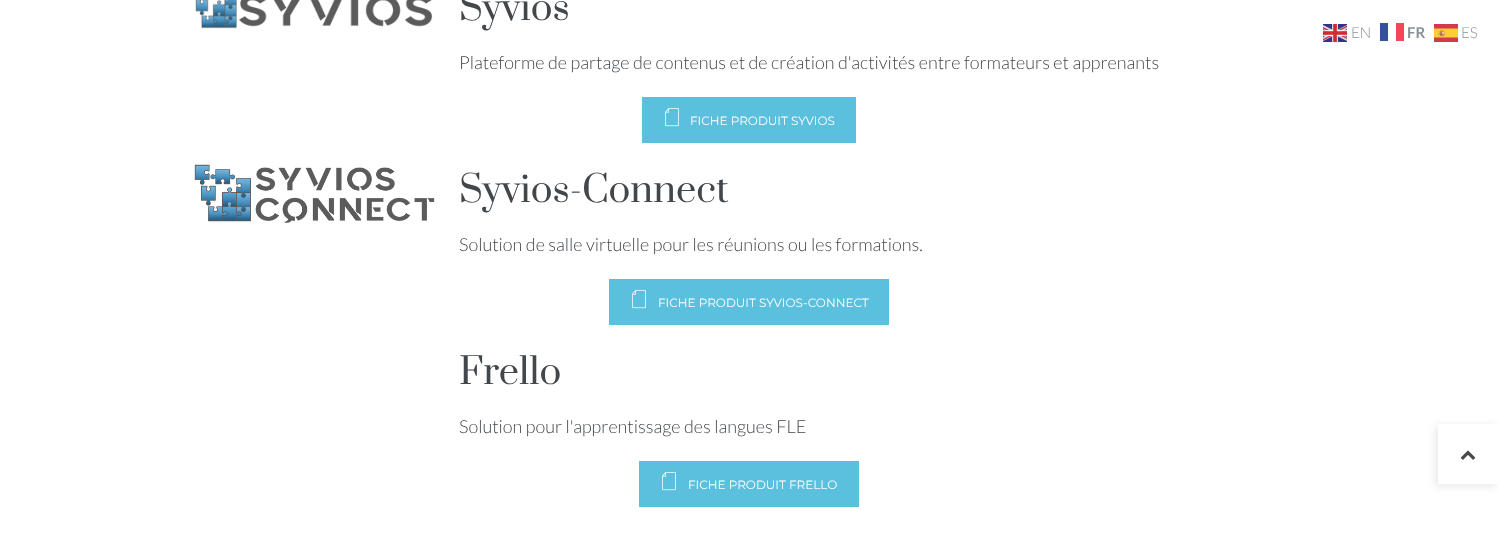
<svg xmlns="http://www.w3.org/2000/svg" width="1498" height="554">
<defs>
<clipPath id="clip1"><path d="M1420 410h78v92h-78zm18 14h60v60h-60z" clip-rule="evenodd"/></clipPath>
</defs>
<rect width="100%" height="100%" fill="#fff"/>
<image x="195" y="0" width="238" height="29" href="media/1.png"/>
<text x="459" y="20" style="font-family:Prata;font-size:36px;fill:#42474c">Syvios</text>
<text x="459" y="69" style="font-family:Lato;font-size:18px;font-weight:300;fill:#42474c">Plateforme de partage de contenus et de création d'activités entre formateurs et apprenants</text>
<rect x="642" y="97" width="214" height="46" fill="#5bc0de"/>
<image x="665" y="108" width="14" height="19" href="media/2.png"/>
<text x="690" y="125" style="font-family:Montserrat;font-size:12px;fill:#fff">FICHE PRODUIT SYVIOS</text>
<image x="194" y="164" width="241" height="59" href="media/3.png"/>
<text x="459" y="202" style="font-family:Prata;font-size:36px;fill:#42474c">Syvios-Connect</text>
<text x="459" y="251" style="font-family:Lato;font-size:18px;font-weight:300;fill:#42474c">Solution de salle virtuelle pour les réunions ou les formations.</text>
<rect x="609" y="279" width="280" height="46" fill="#5bc0de"/>
<image x="632" y="290" width="14" height="19" href="media/2.png"/>
<text x="658" y="307" style="font-family:Montserrat;font-size:12px;fill:#fff">FICHE PRODUIT SYVIOS-CONNECT</text>
<text x="459" y="384" style="font-family:Prata;font-size:36px;fill:#42474c">Frello</text>
<text x="459" y="433" style="font-family:Lato;font-size:18px;font-weight:300;fill:#42474c">Solution pour l'apprentissage des langues FLE</text>
<rect x="639" y="461" width="220" height="46" fill="#5bc0de"/>
<image x="662" y="472" width="14" height="19" href="media/2.png"/>
<text x="688" y="489" style="font-family:Montserrat;font-size:12px;fill:#fff">FICHE PRODUIT FRELLO</text>
<image x="1323" y="24" width="24" height="18" href="media/4.png"/>
<text x="1351" y="38" style="font-family:Lato;font-size:15px;font-weight:300;fill:#899296">EN</text>
<text x="1407" y="38" style="font-family:Lato;font-size:15px;font-weight:bold;fill:#899296">FR</text>
<rect x="1380" y="23" width="8" height="18" fill="#335199"/>
<rect x="1396" y="23" width="8" height="18" fill="#f54659"/>
<image x="1434" y="24" width="24" height="18" href="media/5.png"/>
<text x="1461" y="38" style="font-family:Lato;font-size:15px;font-weight:300;fill:#899296">ES</text>
<g clip-path="url(#clip1)">
<rect x="1436" y="426" width="60" height="60" fill="#0404041a" filter="blur(5px)"/>
</g>
<image x="1460" y="450" width="16" height="10" href="media/6.png"/>
</svg>
